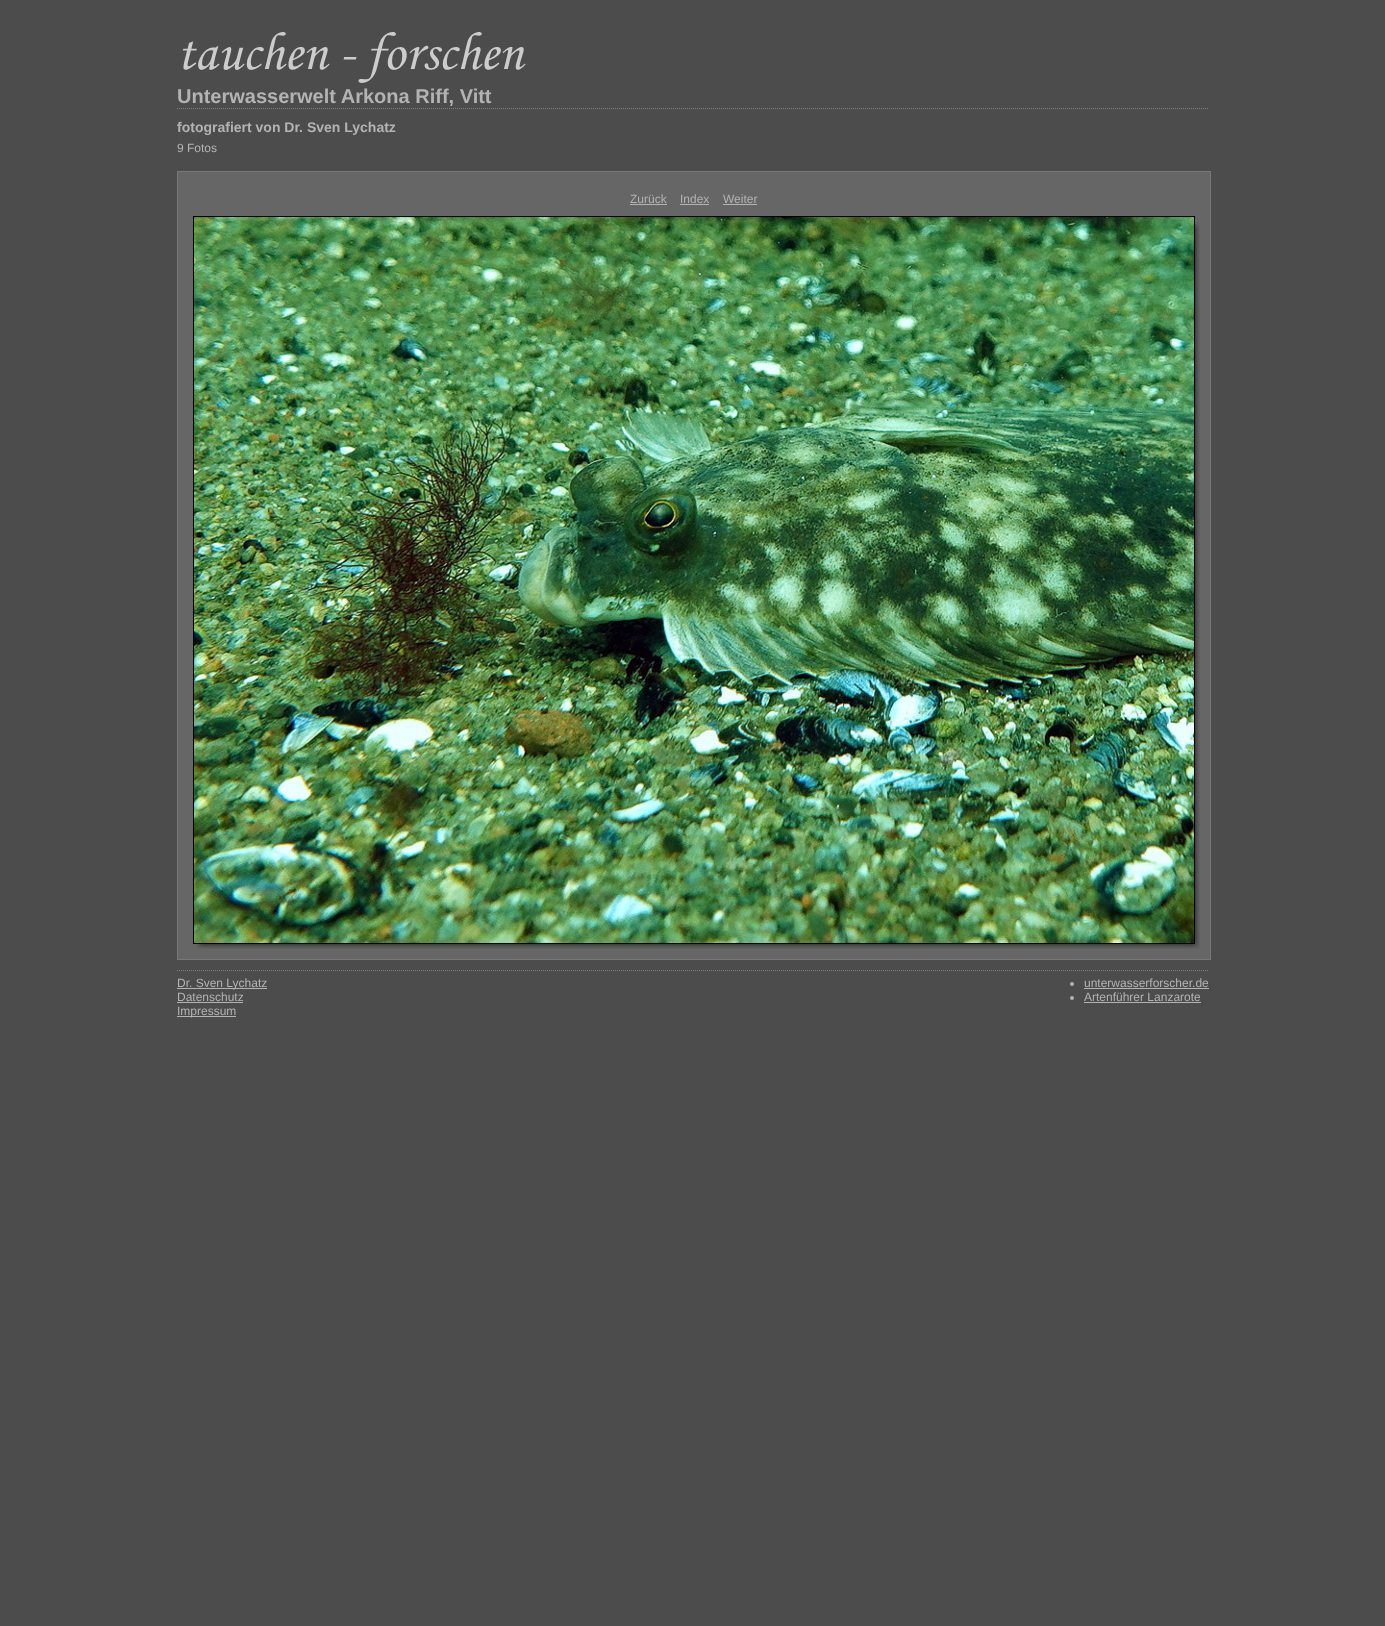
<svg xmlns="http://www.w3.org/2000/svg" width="1385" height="1626">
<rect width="100%" height="100%" fill="#4c4c4c"/>
<image x="183" y="32" width="343" height="51" href="media/1.png"/>
<path d="M177 108.5h1032" fill="none" stroke="#7f7f7f" stroke-dasharray="1 1"/>
<text x="177" y="103" style="font-family:Liberation Sans;font-size:20px;font-weight:bold;fill:#b3b3b3">Unterwasserwelt Arkona Riff, Vitt</text>
<text x="177" y="132" style="font-family:Liberation Sans;font-size:14px;font-weight:bold;fill:#b3b3b3">fotografiert von Dr. Sven Lychatz</text>
<text x="177" y="152" style="font-family:Liberation Sans;font-size:12px;fill:#b3b3b3">9 Fotos</text>
<path d="M177 970.5h1032" fill="none" stroke="#7f7f7f" stroke-dasharray="1 1"/>
<rect x="177.5" y="171.5" width="1033" height="788" fill="#666" stroke="#787878"/>
<text x="630" y="203" style="font-family:Liberation Sans;font-size:12px;fill:#b3b3b3">Zurück</text>
<rect x="630" y="204" width="37" height="1" fill="#b3b3b3"/>
<text x="680" y="203" style="font-family:Liberation Sans;font-size:12px;fill:#b3b3b3">Index</text>
<rect x="680" y="204" width="29" height="1" fill="#b3b3b3"/>
<text x="723" y="203" style="font-family:Liberation Sans;font-size:12px;fill:#b3b3b3">Weiter</text>
<rect x="723" y="204" width="34" height="1" fill="#b3b3b3"/>
<image x="203" y="229" width="997" height="720" href="media/2.png"/>
<rect x="193.5" y="216.5" width="1001" height="727" fill="none" stroke="#000"/>
<image x="194" y="217" width="1000" height="726" href="media/3.png"/>
<image x="1195" y="222" width="5" height="7" href="media/4.png"/>
<image x="196" y="944" width="7" height="5" href="media/5.png"/>
<rect x="177" y="988" width="90" height="1" fill="#b3b3b3"/>
<text x="177" y="987" style="font-family:Liberation Sans;font-size:12px;fill:#b3b3b3">Dr. Sven Lychatz</text>
<circle cx="1072" cy="984" r="2" fill="#b3b3b3"/>
<text x="1084" y="987" style="font-family:Liberation Sans;font-size:12px;fill:#b3b3b3">unterwasserforscher.de</text>
<rect x="1084" y="988" width="125" height="1" fill="#b3b3b3"/>
<circle cx="1072" cy="998" r="2" fill="#b3b3b3"/>
<text x="1084" y="1001" style="font-family:Liberation Sans;font-size:12px;fill:#b3b3b3">Artenführer Lanzarote</text>
<rect x="1084" y="1002" width="117" height="1" fill="#b3b3b3"/>
<text x="177" y="1001" style="font-family:Liberation Sans;font-size:12px;fill:#b3b3b3">Datenschutz</text>
<rect x="177" y="1002" width="66" height="1" fill="#b3b3b3"/>
<rect x="177" y="1016" width="59" height="1" fill="#b3b3b3"/>
<text x="177" y="1015" style="font-family:Liberation Sans;font-size:12px;fill:#b3b3b3">Impressum</text>
</svg>
